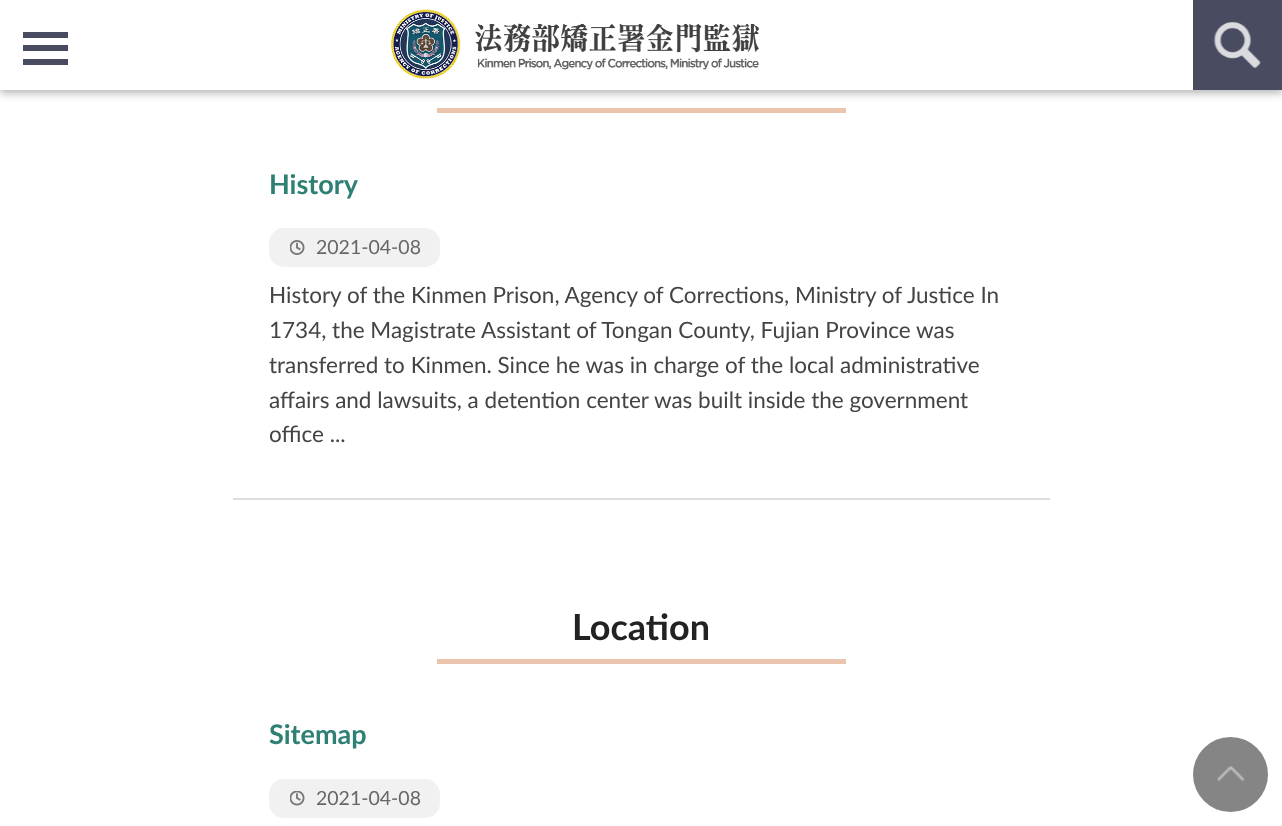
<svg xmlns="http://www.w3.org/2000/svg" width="1282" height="826">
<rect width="100%" height="100%" fill="#fff"/>
<rect y="3" width="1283" height="90" fill="#0000004d" filter="blur(4px)"/>
<rect width="1193" height="90" fill="#fff"/>
<rect x="23" y="32" width="45" height="6" fill="#494c61"/>
<rect x="23" y="45" width="45" height="6" fill="#494c61"/>
<rect x="23" y="59" width="45" height="6" fill="#494c61"/>
<image x="391" y="9" width="368" height="70" href="media/1.png"/>
<rect x="1193" width="89" height="90" fill="#494c61"/>
<image x="1213" y="21" width="48" height="48" href="media/2.png"/>
<rect x="437" y="108" width="409" height="5" fill="#ebc4ae"/>
<rect x="233" y="498" width="817" height="2" fill="#ddd"/>
<text x="269" y="194" style="font-family:Lato;font-size:27px;font-weight:bold;fill:#2d8073">History</text>
<rect x="269" y="228" width="171" height="39" rx="15" fill="#f1f1f1"/>
<image x="290" y="240" width="15" height="15" href="media/3.png"/>
<text x="316" y="254" style="font-family:Lato;font-size:19.5px;fill:#666">2021-04-08</text>
<text x="269" y="303" style="font-family:Lato;font-size:22.5px;fill:#444">History of the Kinmen Prison, Agency of Corrections, Ministry of Justice In</text>
<text x="269" y="338" style="font-family:Lato;font-size:22.5px;fill:#444">1734, the Magistrate Assistant of Tongan County, Fujian Province was</text>
<text x="269" y="373" style="font-family:Lato;font-size:22.5px;fill:#444">transferred to Kinmen. Since he was in charge of the local administrative</text>
<text x="269" y="408" style="font-family:Lato;font-size:22.5px;fill:#444">affairs and lawsuits, a detention center was built inside the government</text>
<text x="269" y="442" style="font-family:Lato;font-size:22.5px;fill:#444">office ...</text>
<text x="572" y="640" style="font-family:Lato;font-size:36px;font-weight:bold;fill:#222">Location</text>
<rect x="437" y="659" width="409" height="5" fill="#ebc4ae"/>
<text x="269" y="744" style="font-family:Lato;font-size:27px;font-weight:bold;fill:#2d8073">Sitemap</text>
<rect x="269" y="779" width="171" height="39" rx="15" fill="#f1f1f1"/>
<image x="290" y="791" width="15" height="15" href="media/4.png"/>
<text x="316" y="805" style="font-family:Lato;font-size:19.5px;fill:#666">2021-04-08</text>
<circle cx="1230.5" cy="774.5" r="37.5" fill="#858585"/>
<image x="1217" y="766" width="28" height="16" href="media/5.png"/>
</svg>
